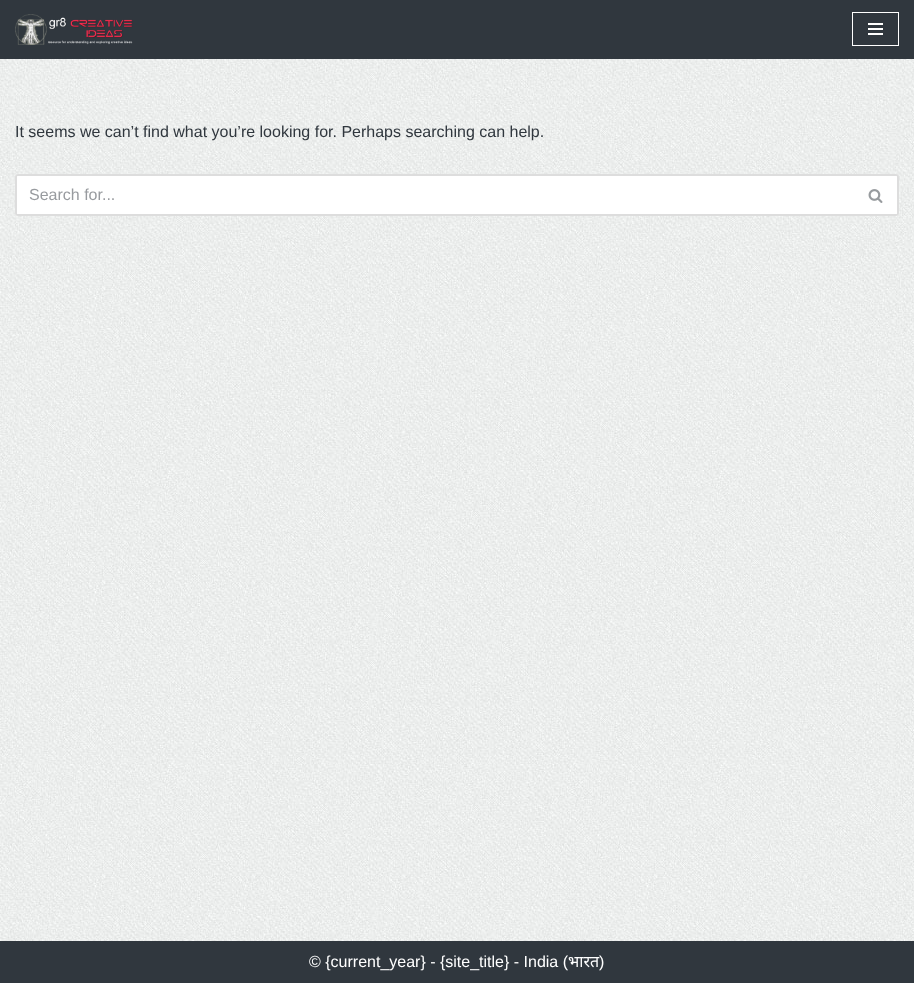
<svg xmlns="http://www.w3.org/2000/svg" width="914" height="983">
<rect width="100%" height="100%" fill="#fff"/>
<image x="0" y="59" width="914" height="882" href="media/1.png"/>
<rect width="914" height="59" fill="#30373e"/>
<image x="15" y="14" width="118" height="31" href="media/2.png"/>
<rect x="852.5" y="12.5" width="46" height="33" fill="none" stroke="#fff"/>
<rect x="868" y="23" width="15" height="2" fill="#fff"/>
<rect x="868" y="28" width="15" height="2" fill="#fff"/>
<rect x="868" y="33" width="15" height="2" fill="#fff"/>
<text x="15" y="137" style="font-family:Liberation Sans;font-size:16px;fill:#30373e">It seems we can’t find what you’re looking for. Perhaps searching can help.</text>
<path d="M18 174h836v42h-836c-1.5 0-3-1.5-3-3v-36c0-1.5 1.5-3 3-3z" fill="#fff"/>
<path d="M18 174h836v42h-836c-2 0-3-1-3-3v-36c0-2 1-3 3-3zm0 2h836v38h-836c-1 0-1 0-1-1v-36c0-1 0-1 1-1z" fill="#ddd" fill-rule="evenodd"/>
<text x="29" y="200" style="font-family:Liberation Sans;font-size:16px;fill:#989b9f">Search for...</text>
<path d="M854 174h42c1.5 0 3 1.5 3 3v36c0 1.5-1.5 3-3 3h-42z" fill="#fff"/>
<path d="M854 174h42c2 0 3 1 3 3v36c0 2-1 3-3 3h-42zm0 2h42c1 0 1 0 1 1v36c0 1 0 1-1 1h-42z" fill="#ddd" fill-rule="evenodd"/>
<image x="868" y="189" width="15" height="14" href="media/3.png"/>
<rect y="941" width="914" height="42" fill="#30373e"/>
<text x="309" y="967" style="font-family:Liberation Sans;font-size:16px;fill:#fff">© {current_year} - {site_title} - India (</text>
<text x="568" y="967" style="font-family:Noto Sans;font-size:16px;fill:#fff">भारत</text>
<text x="599" y="967" style="font-family:Liberation Sans;font-size:16px;fill:#fff">)</text>
</svg>
